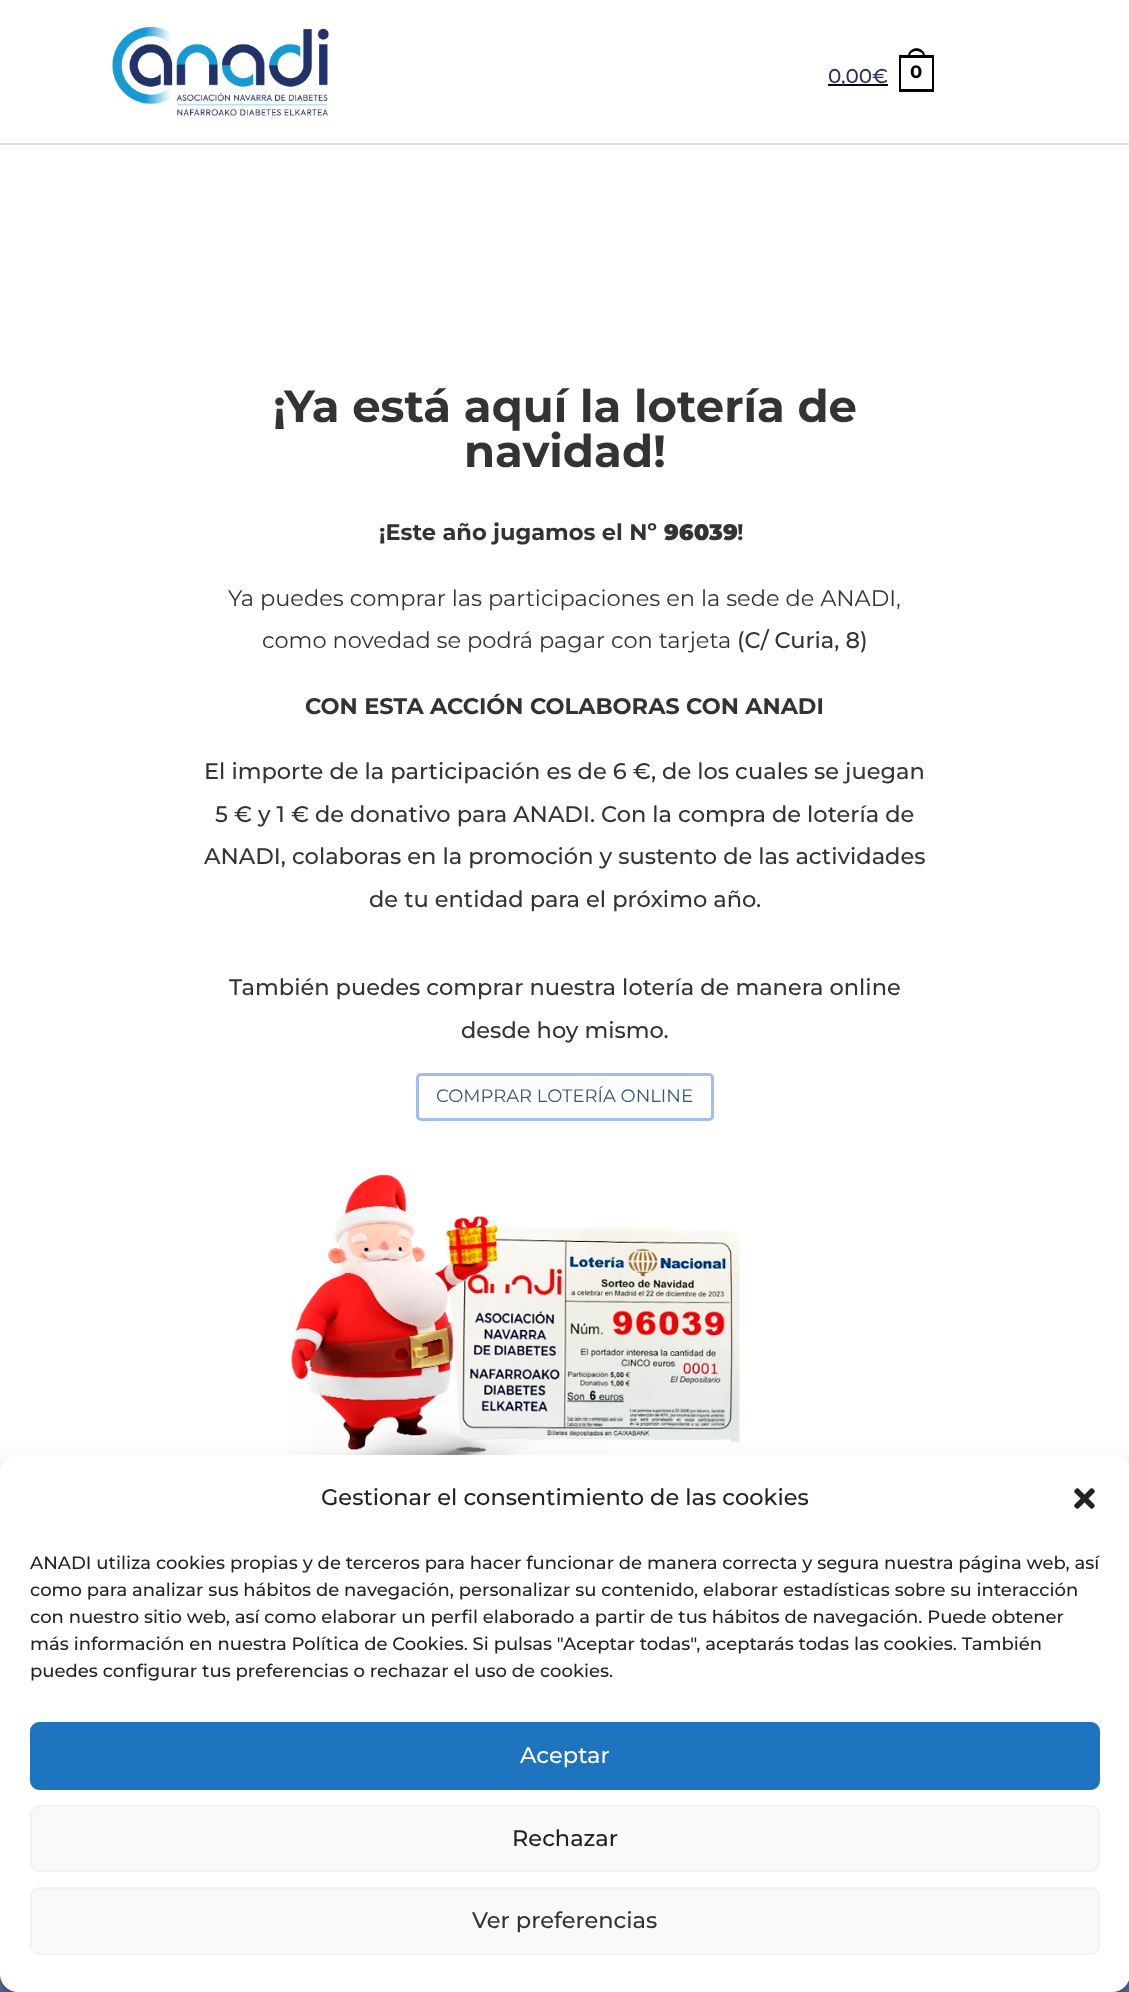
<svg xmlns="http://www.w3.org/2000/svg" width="1129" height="1992">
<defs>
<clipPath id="clip1"><rect x="899" y="48" width="36" height="44"/></clipPath>
</defs>
<rect width="100%" height="100%" fill="#fff"/>
<rect y="143" width="1129" height="2" fill="#ddd"/>
<image x="112" y="27" width="217" height="89" href="media/1.png"/>
<rect x="828" y="84" width="60" height="2" fill="#000"/>
<text x="828" y="83" style="font-family:Montserrat;font-size:20px;font-weight:500;fill:#2c3561">0,00€</text>
<g clip-path="url(#clip1)">
<path d="M925 55c-2-9-15-9-17 0h-10v37h36v-37zm-9-4c3 0 6 1 7 4h-13c1-3 4-4 6-4zm16 38h-31v-31h31z" fill="#000"/>
</g>
<text x="910" y="78" style="font-family:Montserrat;font-size:18px;font-weight:bold;fill:#000">0</text>
<text x="273" y="422" style="font-family:Montserrat;font-size:45px;font-weight:bold;fill:#333">¡Ya está aquí la lotería de</text>
<text x="464" y="467" style="font-family:Montserrat;font-size:45px;font-weight:bold;fill:#333">navidad!</text>
<text x="379" y="540" style="font-family:Montserrat;font-size:22.5px;font-weight:bold;fill:#333">¡Este año jugamos el Nº</text>
<text x="664" y="540" style="font-family:Montserrat;font-size:22.5px;font-weight:900;fill:#333">96039</text>
<text x="737" y="540" style="font-family:Montserrat;font-size:22.5px;font-weight:bold;fill:#333">!</text>
<text x="228" y="606" style="font-family:Montserrat;font-size:22.5px;fill:#333">Ya puedes comprar las participaciones en la sede de ANADI,</text>
<text x="262" y="648" style="font-family:Montserrat;font-size:22.5px;fill:#333">como novedad se podrá pagar con tarjeta</text>
<text x="737" y="648" style="font-family:Montserrat;font-size:22.5px;font-weight:500;fill:#333">(C/ Curia, 8)</text>
<text x="305" y="714" style="font-family:Montserrat;font-size:22.5px;font-weight:bold;fill:#333">CON ESTA ACCIÓN COLABORAS CON ANADI</text>
<text x="204" y="779" style="font-family:Montserrat;font-size:22.5px;font-weight:500;fill:#333">El importe de la participación es de 6 €, de los cuales se juegan</text>
<text x="215" y="822" style="font-family:Montserrat;font-size:22.5px;font-weight:500;fill:#333">5 € y 1 € de donativo para ANADI. Con la compra de lotería de</text>
<text x="204" y="864" style="font-family:Montserrat;font-size:22.5px;font-weight:500;fill:#333">ANADI, colaboras en la promoción y sustento de las actividades</text>
<text x="369" y="907" style="font-family:Montserrat;font-size:22.5px;font-weight:500;fill:#333">de tu entidad para el próximo año.</text>
<text x="229" y="995" style="font-family:Montserrat;font-size:22.5px;font-weight:500;fill:#333">También puedes comprar nuestra lotería de manera online</text>
<text x="461" y="1038" style="font-family:Montserrat;font-size:22.5px;font-weight:500;fill:#333">desde hoy mismo.</text>
<rect x="417.5" y="1074.5" width="295" height="45" rx="3.5" fill="none" stroke="#a0beef" stroke-width="3"/>
<text x="436" y="1102" style="font-family:Montserrat;font-size:18px;fill:#34587c">COMPRAR LOTERÍA ONLINE</text>
<image x="291" y="1174" width="449" height="281" href="media/2.png"/>
<rect y="1974" width="1129" height="18" fill="#6074a6"/>
<rect y="1464" width="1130" height="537" rx="18" fill="#0000003b" filter="blur(4.5px)"/>
<rect y="1470" width="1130" height="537" rx="18" fill="#00000030" filter="blur(15px)"/>
<rect y="1455" width="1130" height="537" rx="18" fill="#fff"/>
<text x="321" y="1505" style="font-family:Montserrat;font-size:22.5px;font-weight:500;fill:#222">Gestionar el consentimiento de las cookies</text>
<image x="1074" y="1488" width="21" height="21" href="media/3.png"/>
<text x="30" y="1569" style="font-family:Montserrat;font-size:18px;font-weight:500;fill:#222">ANADI utiliza cookies propias y de terceros para hacer funcionar de manera correcta y segura nuestra página web, así</text>
<text x="30" y="1596" style="font-family:Montserrat;font-size:18px;font-weight:500;fill:#222">como para analizar sus hábitos de navegación, personalizar su contenido, elaborar estadísticas sobre su interacción</text>
<text x="30" y="1623" style="font-family:Montserrat;font-size:18px;font-weight:500;fill:#222">con nuestro sitio web, así como elaborar un perfil elaborado a partir de tus hábitos de navegación. Puede obtener</text>
<text x="30" y="1650" style="font-family:Montserrat;font-size:18px;font-weight:500;fill:#222">más información en nuestra Política de Cookies. Si pulsas "Aceptar todas", aceptarás todas las cookies. También</text>
<text x="30" y="1677" style="font-family:Montserrat;font-size:18px;font-weight:500;fill:#222">puedes configurar tus preferencias o rechazar el uso de cookies.</text>
<rect x="31" y="1723" width="1068" height="66" rx="8" fill="#1e73be" stroke="#1e73be" stroke-width="2"/>
<text x="520" y="1763" style="font-family:Montserrat;font-size:22.5px;font-weight:500;fill:#fff">Aceptar</text>
<rect x="31" y="1806" width="1068" height="65" rx="8" fill="#f9f9f9" stroke="#f2f2f2" stroke-width="2"/>
<text x="512" y="1846" style="font-family:Montserrat;font-size:22.5px;font-weight:500;fill:#222">Rechazar</text>
<rect x="31" y="1888" width="1068" height="66" rx="8" fill="#f9f9f9" stroke="#f2f2f2" stroke-width="2"/>
<text x="472" y="1928" style="font-family:Montserrat;font-size:22.5px;font-weight:500;fill:#333">Ver preferencias</text>
</svg>
